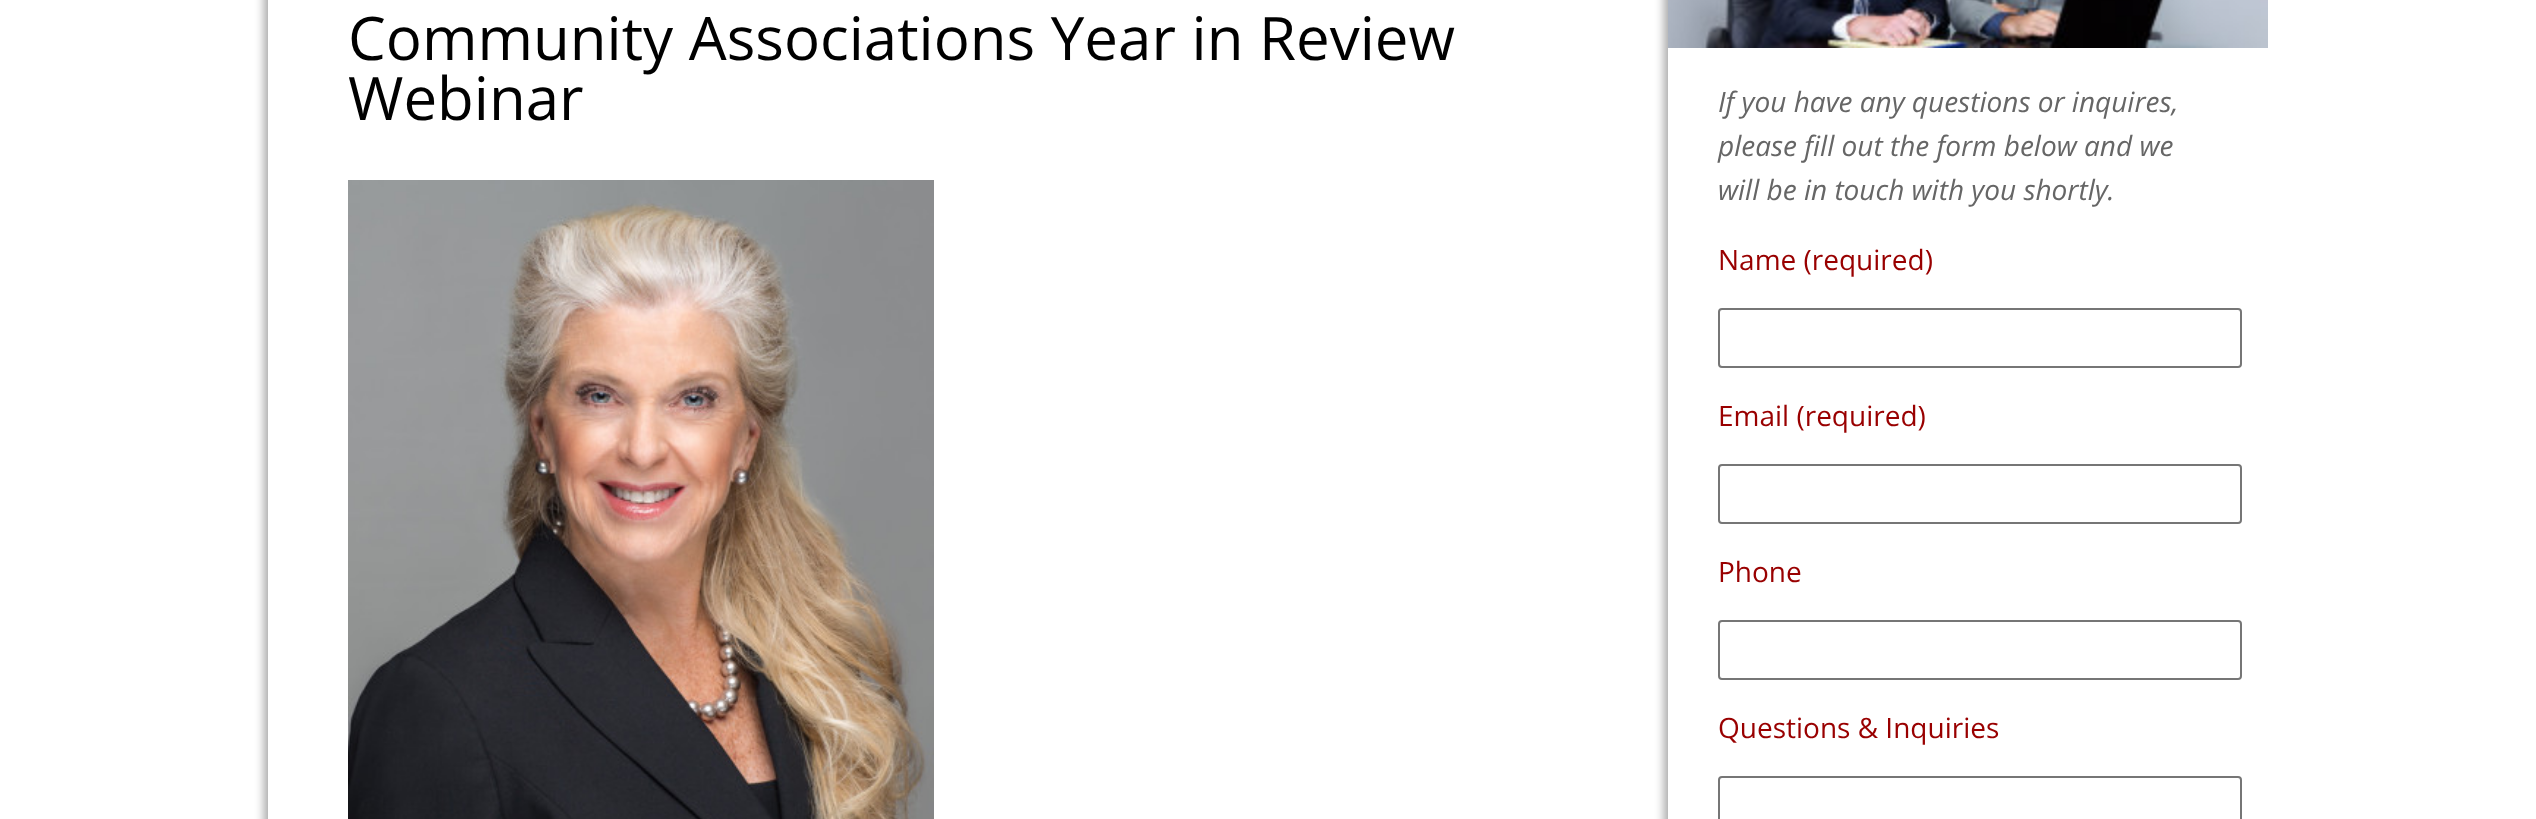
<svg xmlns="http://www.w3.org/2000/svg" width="2536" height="819">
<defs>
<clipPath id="clip1"><rect x="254" y="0" width="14" height="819"/></clipPath>
<clipPath id="clip2"><rect x="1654" y="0" width="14" height="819"/></clipPath>
</defs>
<rect width="100%" height="100%" fill="#fff"/>
<g clip-path="url(#clip1)">
<rect x="264" y="-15" width="1292" height="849" fill="#a8a8a8" filter="blur(5px)"/>
</g>
<text x="348" y="60" style="font-family:Open Sans;font-size:60px;fill:#000">Community Associations Year in Review</text>
<text x="348" y="120" style="font-family:Open Sans;font-size:60px;fill:#000">Webinar</text>
<image x="348" y="180" width="586" height="639" href="media/1.png"/>
<g clip-path="url(#clip2)">
<rect x="1664" y="-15" width="592" height="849" fill="#a8a8a8" filter="blur(5px)"/>
</g>
<image x="1668" y="0" width="600" height="48" href="media/2.png"/>
<text x="1718" y="112" style="font-family:Open Sans;font-size:28px;font-style:italic;fill:#666">If you have any questions or inquires,</text>
<text x="1718" y="156" style="font-family:Open Sans;font-size:28px;font-style:italic;fill:#666">please fill out the form below and we</text>
<text x="1718" y="200" style="font-family:Open Sans;font-size:28px;font-style:italic;fill:#666">will be in touch with you shortly.</text>
<text x="1718" y="270" style="font-family:Open Sans;font-size:28px;fill:#900">Name (required)</text>
<rect x="1719" y="309" width="522" height="58" rx="3" fill="none" stroke="#767676" stroke-width="2"/>
<text x="1718" y="426" style="font-family:Open Sans;font-size:28px;fill:#900">Email (required)</text>
<rect x="1719" y="465" width="522" height="58" rx="3" fill="none" stroke="#767676" stroke-width="2"/>
<text x="1718" y="582" style="font-family:Open Sans;font-size:28px;fill:#900">Phone</text>
<rect x="1719" y="621" width="522" height="58" rx="3" fill="none" stroke="#767676" stroke-width="2"/>
<text x="1718" y="738" style="font-family:Open Sans;font-size:28px;fill:#900">Questions &amp; Inquiries</text>
<rect x="1719" y="777" width="522" height="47" rx="3" fill="none" stroke="#767676" stroke-width="2"/>
</svg>
